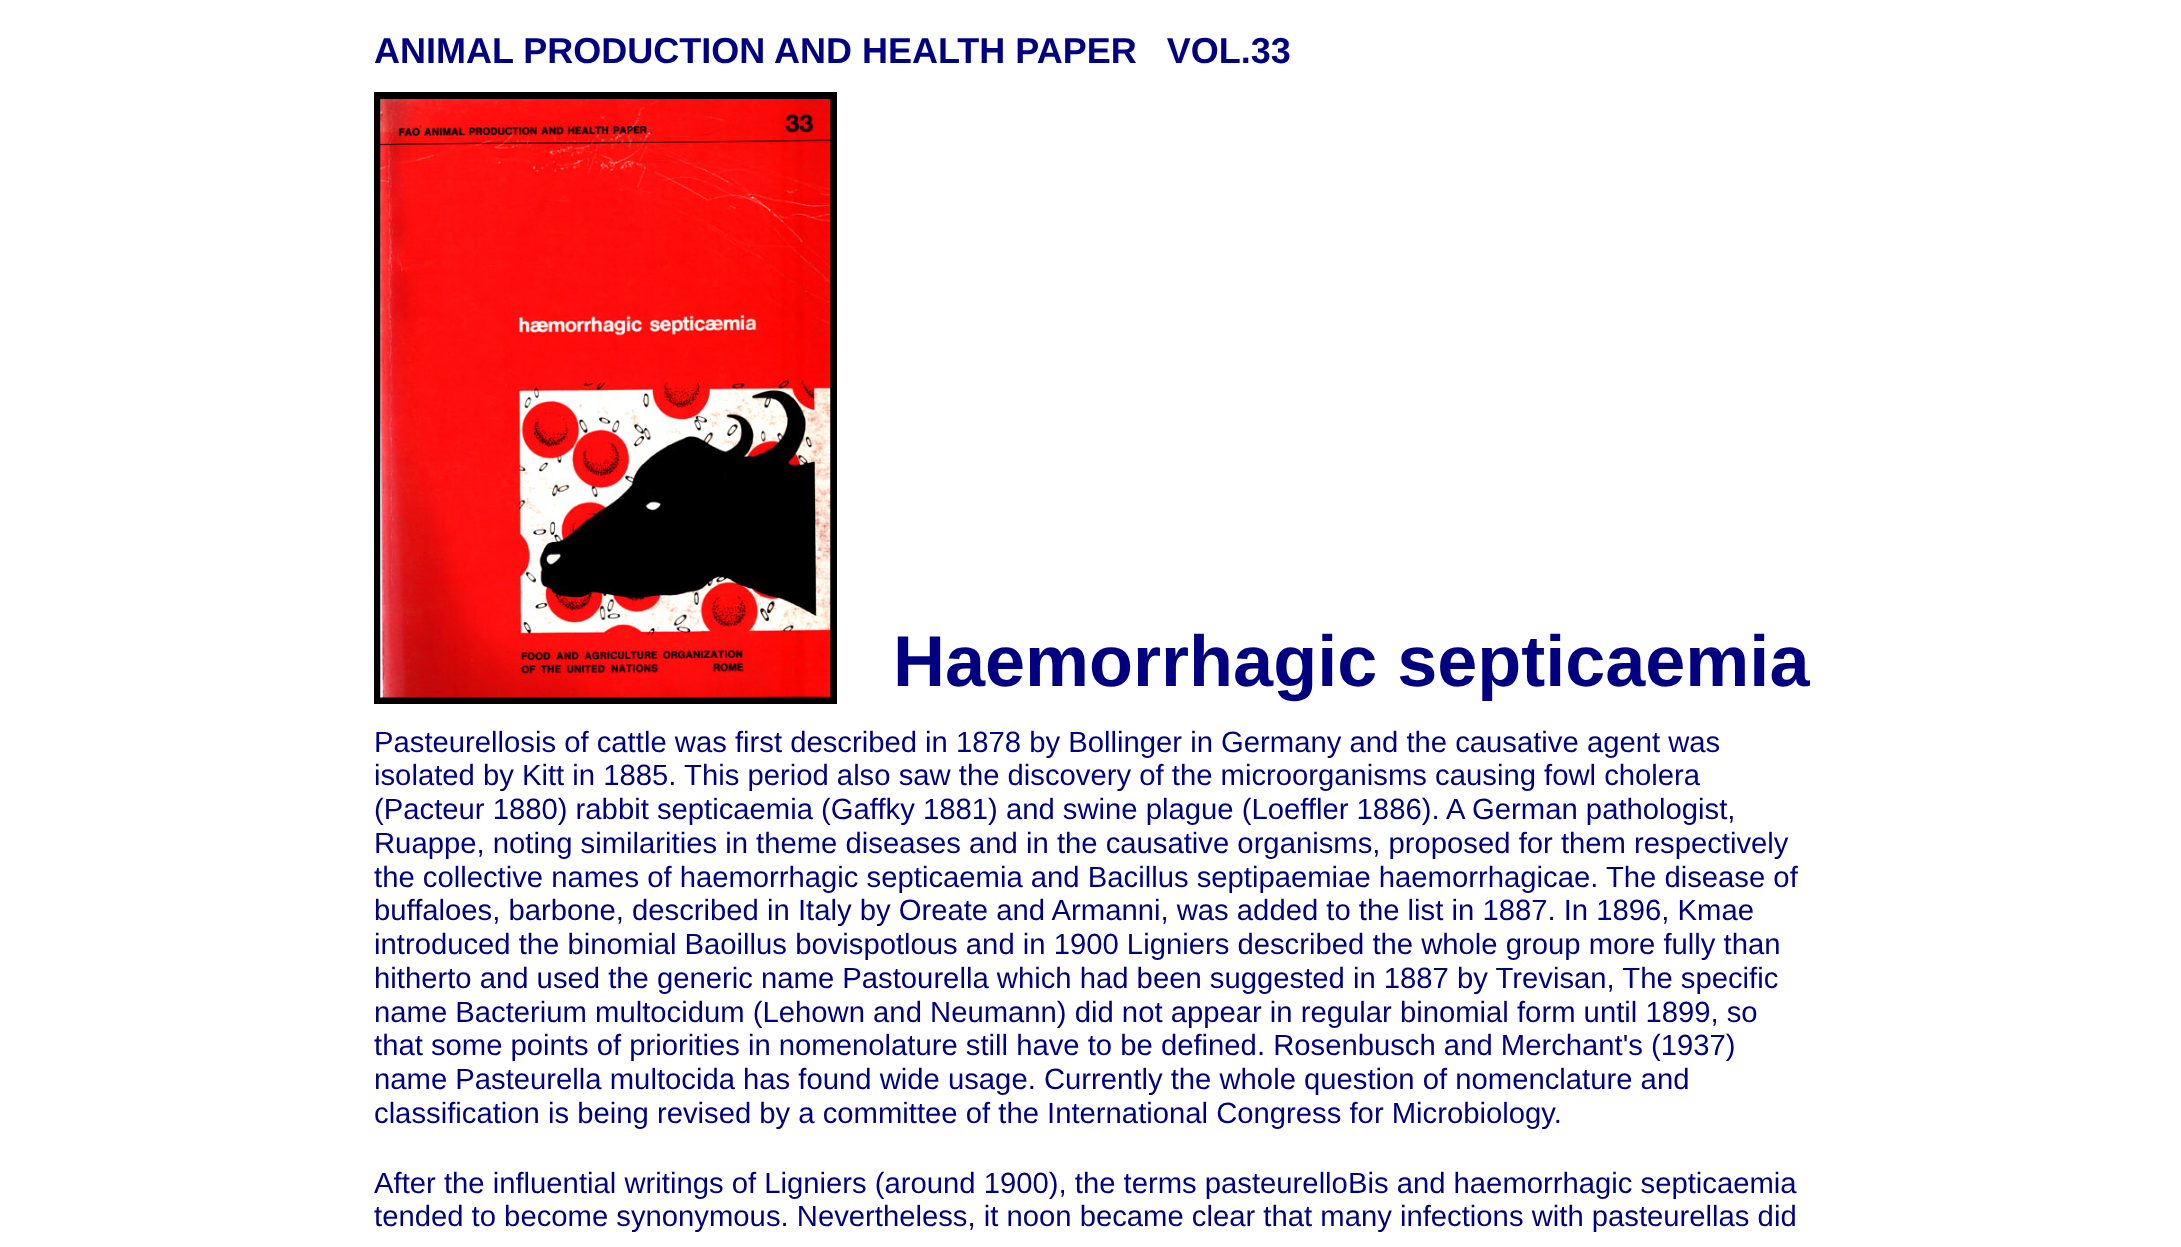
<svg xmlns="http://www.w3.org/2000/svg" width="2181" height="1247">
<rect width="100%" height="100%" fill="#fff"/>
<text x="374" y="63" style="font-family:Liberation Sans;font-size:36px;font-weight:bold;fill:#000080" xml:space="preserve">ANIMAL PRODUCTION AND HEALTH PAPER   VOL.33</text>
<rect x="377.5" y="95.5" width="456" height="605" fill="none" stroke="#000" stroke-width="7"/>
<image x="380" y="99" width="451" height="599" href="media/1.png"/>
<text x="893" y="686" style="font-family:Liberation Sans;font-size:72px;font-weight:bold;fill:#000080">Haemorrhagic septicaemia</text>
<text x="374" y="752" style="font-family:Liberation Sans;font-size:29.25px;fill:#000080">Pasteurellosis of cattle was first described in 1878 by Bollinger in Germany and the causative agent was</text>
<text x="374" y="785" style="font-family:Liberation Sans;font-size:29.25px;fill:#000080">isolated by Kitt in 1885. This period also saw the discovery of the microorganisms causing fowl cholera</text>
<text x="374" y="819" style="font-family:Liberation Sans;font-size:29.25px;fill:#000080">(Pacteur 1880) rabbit septicaemia (Gaffky 1881) and swine plague (Loeffler 1886). A German pathologist,</text>
<text x="374" y="853" style="font-family:Liberation Sans;font-size:29.25px;fill:#000080">Ruappe, noting similarities in theme diseases and in the causative organisms, proposed for them respectively</text>
<text x="374" y="887" style="font-family:Liberation Sans;font-size:29.25px;fill:#000080">the collective names of haemorrhagic septicaemia and Bacillus septipaemiae haemorrhagicae. The disease of</text>
<text x="374" y="920" style="font-family:Liberation Sans;font-size:29.25px;fill:#000080">buffaloes, barbone, described in Italy by Oreate and Armanni, was added to the list in 1887. In 1896, Kmae</text>
<text x="374" y="954" style="font-family:Liberation Sans;font-size:29.25px;fill:#000080">introduced the binomial Baoillus bovispotlous and in 1900 Ligniers described the whole group more fully than</text>
<text x="374" y="988" style="font-family:Liberation Sans;font-size:29.25px;fill:#000080">hitherto and used the generic name Pastourella which had been suggested in 1887 by Trevisan, The specific</text>
<text x="374" y="1022" style="font-family:Liberation Sans;font-size:29.25px;fill:#000080">name Bacterium multocidum (Lehown and Neumann) did not appear in regular binomial form until 1899, so</text>
<text x="374" y="1055" style="font-family:Liberation Sans;font-size:29.25px;fill:#000080">that some points of priorities in nomenolature still have to be defined. Rosenbusch and Merchant's (1937)</text>
<text x="374" y="1089" style="font-family:Liberation Sans;font-size:29.25px;fill:#000080">name Pasteurella multocida has found wide usage. Currently the whole question of nomenclature and</text>
<text x="374" y="1123" style="font-family:Liberation Sans;font-size:29.25px;fill:#000080">classification is being revised by a committee of the International Congress for Microbiology.</text>
<text x="374" y="1193" style="font-family:Liberation Sans;font-size:29.25px;fill:#000080">After the influential writings of Ligniers (around 1900), the terms pasteurelloBis and haemorrhagic septicaemia</text>
<text x="374" y="1226" style="font-family:Liberation Sans;font-size:29.25px;fill:#000080">tended to become synonymous. Nevertheless, it noon became clear that many infections with pasteurellas did</text>
</svg>
